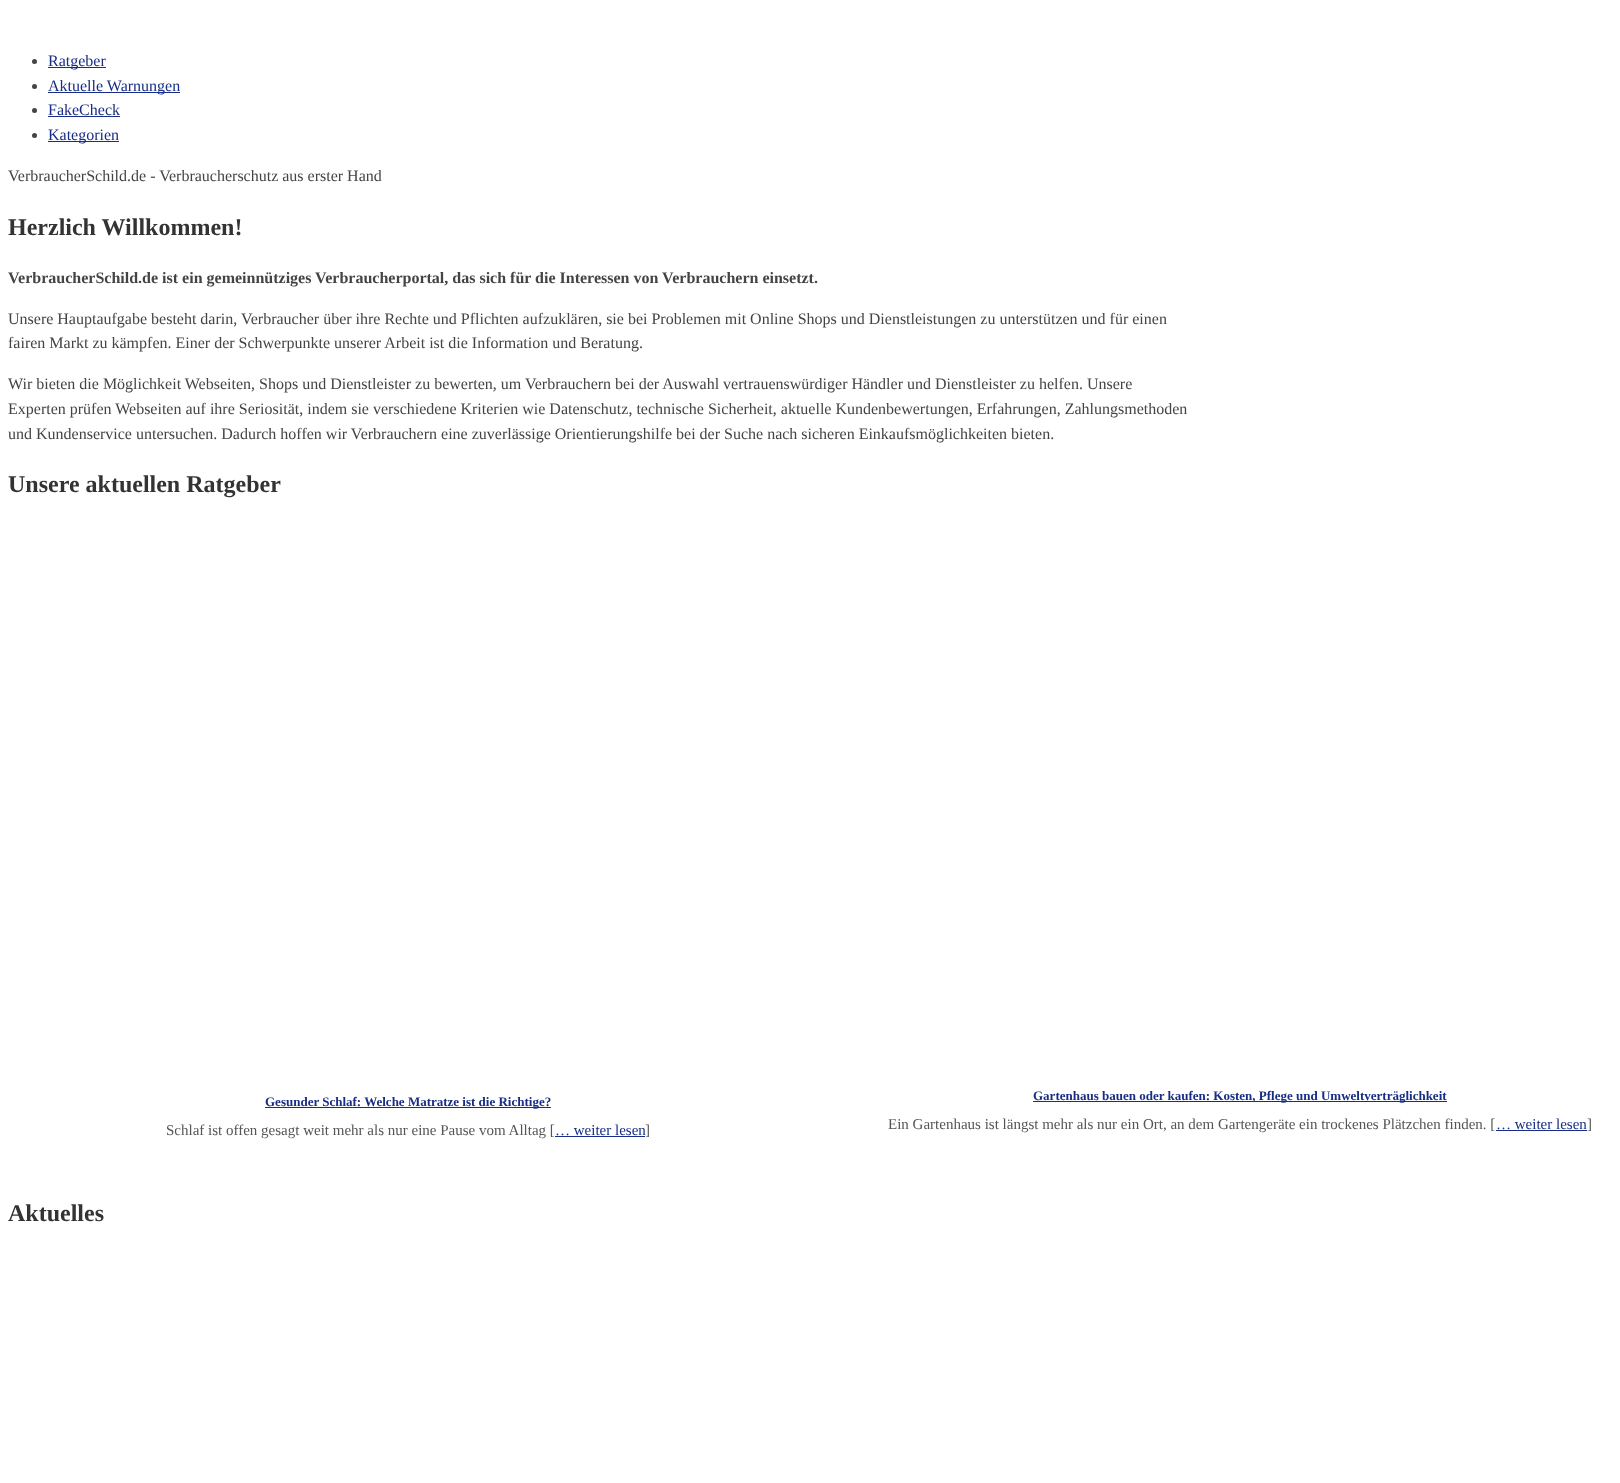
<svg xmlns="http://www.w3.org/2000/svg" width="1620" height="1483">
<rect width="100%" height="100%" fill="#fff"/>
<circle cx="34.5" cy="61.5" r="2.5" fill="#444"/>
<rect x="48" y="67" width="58" height="1" fill="#172d86"/>
<text x="48" y="66" style="font-family:Liberation Serif;font-size:16px;fill:#172d86">Ratgeber</text>
<circle cx="34.5" cy="86.5" r="2.5" fill="#444"/>
<rect x="48" y="92" width="132" height="1" fill="#172d86"/>
<text x="48" y="91" style="font-family:Liberation Serif;font-size:16px;fill:#172d86">Aktuelle Warnungen</text>
<circle cx="34.5" cy="110.5" r="2.5" fill="#444"/>
<text x="48" y="115" style="font-family:Liberation Serif;font-size:16px;fill:#172d86">FakeCheck</text>
<rect x="48" y="116" width="72" height="1" fill="#172d86"/>
<circle cx="34.5" cy="135.5" r="2.5" fill="#444"/>
<rect x="48" y="141" width="71" height="1" fill="#172d86"/>
<text x="48" y="140" style="font-family:Liberation Serif;font-size:16px;fill:#172d86">Kategorien</text>
<text x="8" y="181" style="font-family:Liberation Serif;font-size:16px;fill:#444">VerbraucherSchild.de - Verbraucherschutz aus erster Hand</text>
<text x="8" y="235" style="font-family:Liberation Serif;font-size:24px;font-weight:bold;fill:#333">Herzlich Willkommen!</text>
<text x="8" y="283" style="font-family:Liberation Serif;font-size:16px;font-weight:bold;fill:#444">VerbraucherSchild.de ist ein gemeinnütziges Verbraucherportal, das sich für die Interessen von Verbrauchern einsetzt.</text>
<text x="8" y="324" style="font-family:Liberation Serif;font-size:16px;fill:#444">Unsere Hauptaufgabe besteht darin, Verbraucher über ihre Rechte und Pflichten aufzuklären, sie bei Problemen mit Online Shops und Dienstleistungen zu unterstützen und für einen</text>
<text x="8" y="348" style="font-family:Liberation Serif;font-size:16px;fill:#444">fairen Markt zu kämpfen. Einer der Schwerpunkte unserer Arbeit ist die Information und Beratung.</text>
<text x="8" y="389" style="font-family:Liberation Serif;font-size:16px;fill:#444">Wir bieten die Möglichkeit Webseiten, Shops und Dienstleister zu bewerten, um Verbrauchern bei der Auswahl vertrauenswürdiger Händler und Dienstleister zu helfen. Unsere</text>
<text x="8" y="414" style="font-family:Liberation Serif;font-size:16px;fill:#444">Experten prüfen Webseiten auf ihre Seriosität, indem sie verschiedene Kriterien wie Datenschutz, technische Sicherheit, aktuelle Kundenbewertungen, Erfahrungen, Zahlungsmethoden</text>
<text x="8" y="439" style="font-family:Liberation Serif;font-size:16px;fill:#444">und Kundenservice untersuchen. Dadurch hoffen wir Verbrauchern eine zuverlässige Orientierungshilfe bei der Suche nach sicheren Einkaufsmöglichkeiten bieten.</text>
<text x="8" y="492" style="font-family:Liberation Serif;font-size:24px;font-weight:bold;fill:#333">Unsere aktuellen Ratgeber</text>
<rect x="265" y="1107" width="286" height="1" fill="#172d86"/>
<text x="265" y="1106" style="font-family:Liberation Serif;font-size:13px;font-weight:bold;fill:#172d86">Gesunder Schlaf: Welche Matratze ist die Richtige?</text>
<text x="166" y="1135" style="font-family:Liberation Serif;font-size:15px;fill:#555">Schlaf ist offen gesagt weit mehr als nur eine Pause vom Alltag [</text>
<text x="555" y="1135" style="font-family:Liberation Serif;font-size:15px;fill:#172d86">… weiter lesen</text>
<rect x="555" y="1136" width="90" height="1" fill="#172d86"/>
<text x="645" y="1135" style="font-family:Liberation Serif;font-size:15px;fill:#555">]</text>
<rect x="1033" y="1101" width="414" height="1" fill="#172d86"/>
<text x="1033" y="1100" style="font-family:Liberation Serif;font-size:13px;font-weight:bold;fill:#172d86">Gartenhaus bauen oder kaufen: Kosten, Pflege und Umweltverträglichkeit</text>
<text x="888" y="1129" style="font-family:Liberation Serif;font-size:15px;fill:#555">Ein Gartenhaus ist längst mehr als nur ein Ort, an dem Gartengeräte ein trockenes Plätzchen finden. [</text>
<text x="1496" y="1129" style="font-family:Liberation Serif;font-size:15px;fill:#172d86">… weiter lesen</text>
<rect x="1496" y="1130" width="91" height="1" fill="#172d86"/>
<text x="1587" y="1129" style="font-family:Liberation Serif;font-size:15px;fill:#555">]</text>
<text x="8" y="1221" style="font-family:Liberation Serif;font-size:24px;font-weight:bold;fill:#333">Aktuelles</text>
</svg>
